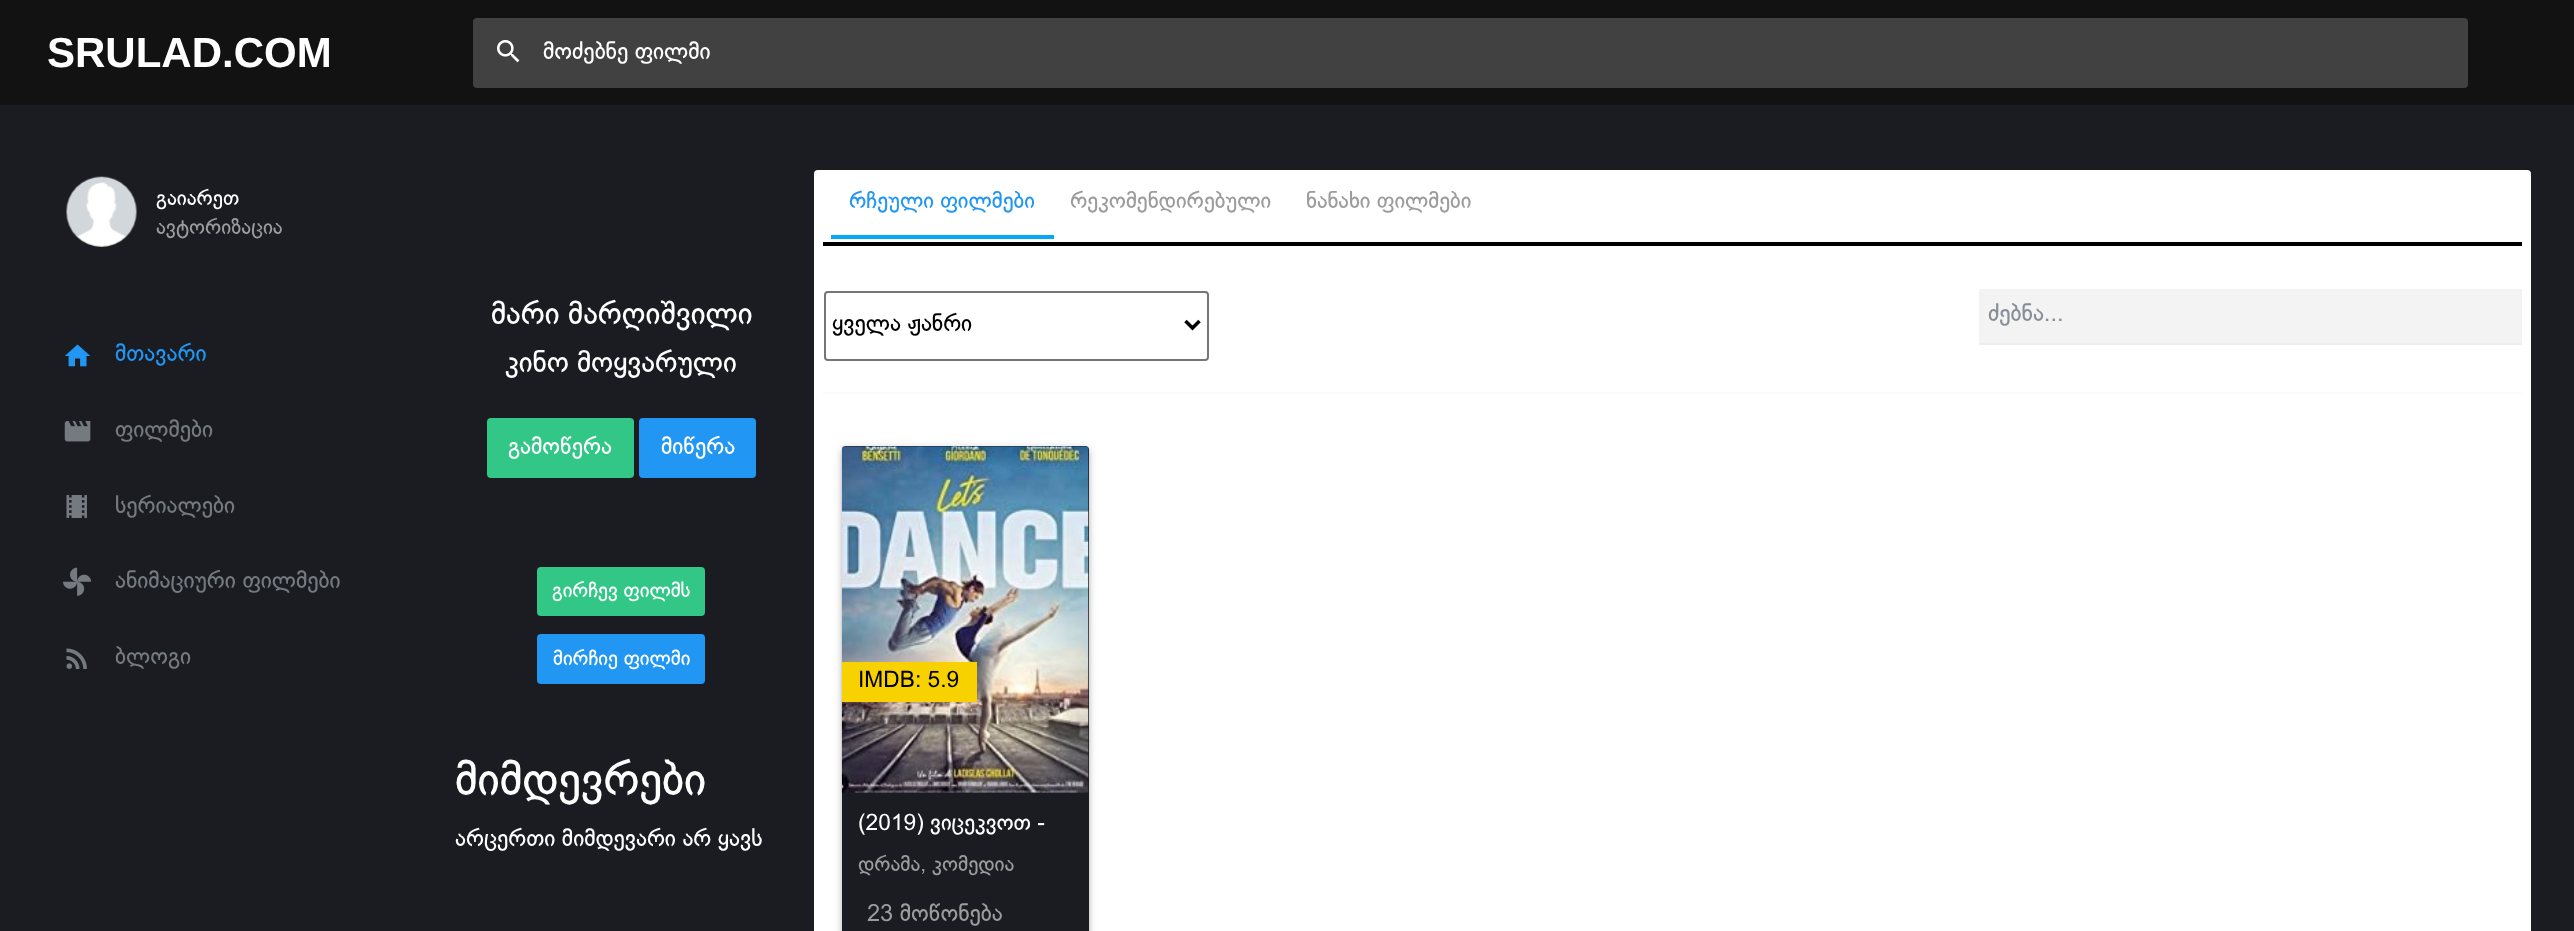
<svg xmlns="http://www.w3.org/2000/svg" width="2574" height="931">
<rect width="100%" height="100%" fill="#1a1c21"/>
<rect width="2574" height="105" fill="#121212"/>
<text x="47" y="67" style="font-family:Liberation Sans;font-size:42px;font-weight:bold;fill:#fff">SRULAD.COM</text>
<rect x="473" y="18" width="1995" height="70" rx="4" fill="#414141"/>
<image x="497" y="40" width="23" height="23" href="media/1.png"/>
<text x="543" y="59" style="font-family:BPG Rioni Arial;font-size:23.6px;fill:#fff">მოძებნე ფილმი</text>
<image x="66" y="176" width="71" height="71" href="media/2.png"/>
<text x="156" y="205" style="font-family:BPG Rioni Arial;font-size:21.25px;fill:#fff">გაიარეთ</text>
<text x="156" y="234" style="font-family:BPG Rioni Arial;font-size:21.25px;fill:#9c9c9c">ავტორიზაცია</text>
<image x="64" y="344" width="27" height="23" href="media/3.png"/>
<text x="115" y="361" style="font-family:BPG Rioni Arial;font-size:23.6px;fill:#2196f3">მთავარი</text>
<image x="64" y="421" width="27" height="21" href="media/4.png"/>
<text x="115" y="437" style="font-family:BPG Rioni Arial;font-size:23.6px;fill:#747a80">ფილმები</text>
<image x="66" y="495" width="21" height="23" href="media/5.png"/>
<text x="115" y="513" style="font-family:BPG Rioni Arial;font-size:23.6px;fill:#747a80">სერიალები</text>
<image x="63" y="567" width="29" height="29" href="media/6.png"/>
<text x="115" y="588" style="font-family:BPG Rioni Arial;font-size:23.6px;fill:#747a80">ანიმაციური ფილმები</text>
<image x="66" y="648" width="21" height="21" href="media/7.png"/>
<text x="115" y="664" style="font-family:BPG Rioni Arial;font-size:23.6px;fill:#747a80">ბლოგი</text>
<text x="491" y="324" style="font-family:BPG Rioni Arial;font-size:31.5px;fill:#fff">მარი მარღიშვილი</text>
<text x="505" y="372" style="font-family:BPG Rioni Arial;font-size:29.5px;fill:#fff">კინო მოყვარული</text>
<rect x="487" y="418" width="147" height="60" rx="4" fill="#32c787"/>
<text x="508" y="454" style="font-family:BPG Rioni Arial;font-size:23.6px;fill:#fff">გამოწერა</text>
<rect x="639" y="418" width="117" height="60" rx="4" fill="#2196f3"/>
<text x="661" y="454" style="font-family:BPG Rioni Arial;font-size:23.6px;fill:#fff">მიწერა</text>
<rect x="537" y="567" width="168" height="49" rx="4" fill="#32c787"/>
<text x="552" y="597" style="font-family:BPG Rioni Arial;font-size:20.75px;fill:#fff">გირჩევ ფილმს</text>
<rect x="537" y="634" width="168" height="50" rx="4" fill="#2196f3"/>
<text x="553" y="665" style="font-family:BPG Rioni Arial;font-size:20.75px;fill:#fff">მირჩიე ფილმი</text>
<text x="455" y="795" style="font-family:BPG Rioni Arial;font-size:47.25px;fill:#fff">მიმდევრები</text>
<text x="455" y="846" style="font-family:BPG Rioni Arial;font-size:23.6px;fill:#fff">არცერთი მიმდევარი არ ყავს</text>
<rect x="814" y="170" width="1717" height="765" rx="4" fill="#fff"/>
<rect x="823" y="242" width="1699" height="4" fill="#000"/>
<text x="849" y="208" style="font-family:BPG Rioni Arial;font-size:22.75px;fill:#2196f3">რჩეული ფილმები</text>
<rect x="831" y="235" width="223" height="4" fill="#03a9f4"/>
<text x="1070" y="208" style="font-family:BPG Rioni Arial;font-size:22.75px;fill:#9c9c9c">რეკომენდირებული</text>
<text x="1306" y="208" style="font-family:BPG Rioni Arial;font-size:22.75px;fill:#9c9c9c">ნანახი ფილმები</text>
<rect x="825" y="292" width="383" height="68" rx="3" fill="none" stroke="#767676" stroke-width="2"/>
<path d="M1185.5 321l7 7l7-7" fill="none" stroke="#000" stroke-width="3.5"/>
<text x="832" y="331" style="font-family:BPG Rioni Arial;font-size:23.6px;fill:#000">ყველა ჟანრი</text>
<rect x="1979" y="289" width="543" height="54" fill="#f3f3f3"/>
<rect x="1979" y="343" width="543" height="2" fill="#eceff1"/>
<text x="1988" y="321" style="font-family:BPG Rioni Arial;font-size:23.6px;fill:#868e96">ძებნა...</text>
<rect x="823" y="392" width="1699" height="2" fill="#fafafb"/>
<rect x="842" y="448" width="247" height="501" rx="4" fill="#00000033" filter="blur(4.5px)"/>
<rect x="842" y="450" width="247" height="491" rx="4" fill="#00000024" filter="blur(2px)"/>
<rect x="842" y="446" width="247" height="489" rx="4" fill="#1a1c21"/>
<image x="841" y="446" width="248" height="347" href="media/8.png"/>
<rect x="842" y="662" width="135" height="40" fill="#f7d100"/>
<text x="858" y="687" style="font-family:BPG Rioni Arial;font-size:22.75px;fill:#000">IMDB: 5.9</text>
<text x="858" y="830" style="font-family:BPG Rioni Arial;font-size:22.75px;fill:#fff">(2019) ვიცეკვოთ -</text>
<text x="858" y="871" style="font-family:BPG Rioni Arial;font-size:21.25px;fill:#9c9c9c">დრამა, კომედია</text>
<text x="867" y="921" style="font-family:BPG Rioni Arial;font-size:23.6px;fill:#9c9c9c">23 მოწონება</text>
</svg>
